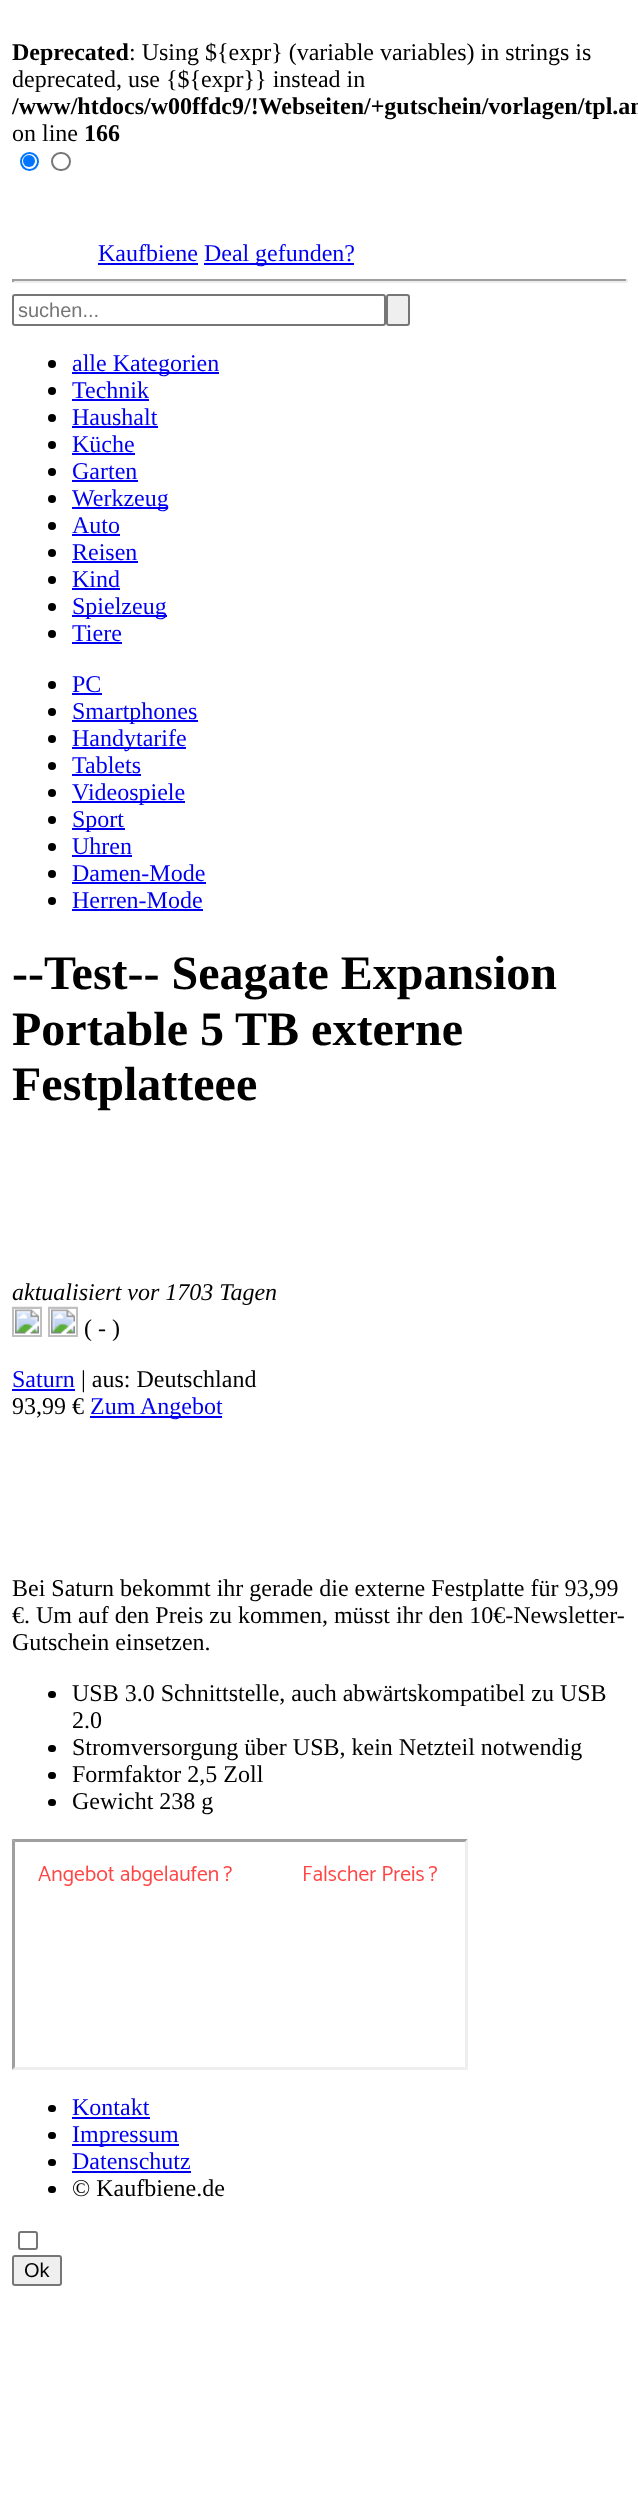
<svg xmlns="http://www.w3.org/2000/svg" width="638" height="2505">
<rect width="100%" height="100%" fill="#fff"/>
<text x="12" y="60" style="font-family:Liberation Serif;font-size:24px;font-weight:bold;fill:#000">Deprecated</text>
<text x="129" y="60" style="font-family:Liberation Serif;font-size:24px;fill:#000">: Using ${expr} (variable variables) in strings is</text>
<text x="12" y="87" style="font-family:Liberation Serif;font-size:24px;fill:#000">deprecated, use {${expr}} instead in</text>
<text x="12" y="114" style="font-family:Liberation Serif;font-size:24px;font-weight:bold;fill:#000">/www/htdocs/w00ffdc9/!Webseiten/+gutschein/vorlagen/tpl.an</text>
<text x="12" y="141" style="font-family:Liberation Serif;font-size:24px;fill:#000">on line</text>
<text x="84" y="141" style="font-family:Liberation Serif;font-size:24px;font-weight:bold;fill:#000">166</text>
<circle cx="29.5" cy="161.5" r="8.5" fill="none" stroke="#0075ff" stroke-width="2"/>
<circle cx="29" cy="161" r="6" fill="#0075ff"/>
<rect x="52" y="153" width="18" height="17" rx="8.5" fill="none" stroke="#767676" stroke-width="2"/>
<text x="98" y="261" style="font-family:Liberation Serif;font-size:24px;fill:#00e">Kaufbiene Deal</text>
<rect x="98" y="263" width="100" height="2" fill="#00e"/>
<rect x="204" y="263" width="150" height="2" fill="#00e"/>
<text x="255" y="261" style="font-family:Liberation Serif;font-size:24px;fill:#00e">gefunden?</text>
<rect x="12" y="279" width="615" height="2" fill="#9f9f9f"/>
<rect x="626" y="279" width="2" height="3" fill="#eee"/>
<rect x="12" y="281" width="615" height="2" fill="#eee"/>
<rect x="12" y="279" width="2" height="3" fill="#9f9f9f"/>
<rect x="13" y="295" width="372" height="30" rx="2" fill="none" stroke="#767676" stroke-width="2"/>
<text x="18" y="317" style="font-family:Liberation Sans;font-size:20px;fill:#757575">suchen...</text>
<rect x="387" y="295" width="22" height="30" rx="2" fill="#efefef" stroke="#767676" stroke-width="2"/>
<circle cx="52" cy="364" r="4" fill="#000"/>
<rect x="72" y="372" width="147" height="2" fill="#00e"/>
<text x="72" y="371" style="font-family:Liberation Serif;font-size:24px;fill:#00e">alle Kategorien</text>
<circle cx="52" cy="391" r="4" fill="#000"/>
<text x="72" y="398" style="font-family:Liberation Serif;font-size:24px;fill:#00e">Technik</text>
<rect x="72" y="399" width="77" height="2" fill="#00e"/>
<circle cx="52" cy="418" r="4" fill="#000"/>
<text x="72" y="425" style="font-family:Liberation Serif;font-size:24px;fill:#00e">Haushalt</text>
<rect x="72" y="426" width="86" height="2" fill="#00e"/>
<circle cx="52" cy="445" r="4" fill="#000"/>
<text x="72" y="452" style="font-family:Liberation Serif;font-size:24px;fill:#00e">Küche</text>
<rect x="72" y="453" width="63" height="2" fill="#00e"/>
<circle cx="52" cy="472" r="4" fill="#000"/>
<text x="72" y="479" style="font-family:Liberation Serif;font-size:24px;fill:#00e">Garten</text>
<rect x="72" y="480" width="66" height="2" fill="#00e"/>
<circle cx="52" cy="499" r="4" fill="#000"/>
<rect x="72" y="507" width="96" height="2" fill="#00e"/>
<text x="72" y="506" style="font-family:Liberation Serif;font-size:24px;fill:#00e">Werkzeug</text>
<circle cx="52" cy="526" r="4" fill="#000"/>
<text x="72" y="533" style="font-family:Liberation Serif;font-size:24px;fill:#00e">Auto</text>
<rect x="72" y="534" width="48" height="2" fill="#00e"/>
<circle cx="52" cy="553" r="4" fill="#000"/>
<text x="72" y="560" style="font-family:Liberation Serif;font-size:24px;fill:#00e">Reisen</text>
<rect x="72" y="561" width="66" height="2" fill="#00e"/>
<circle cx="52" cy="580" r="4" fill="#000"/>
<text x="72" y="587" style="font-family:Liberation Serif;font-size:24px;fill:#00e">Kind</text>
<rect x="72" y="588" width="48" height="2" fill="#00e"/>
<circle cx="52" cy="607" r="4" fill="#000"/>
<rect x="72" y="615" width="95" height="2" fill="#00e"/>
<text x="72" y="614" style="font-family:Liberation Serif;font-size:24px;fill:#00e">Spielzeug</text>
<circle cx="52" cy="634" r="4" fill="#000"/>
<text x="72" y="641" style="font-family:Liberation Serif;font-size:24px;fill:#00e">Tiere</text>
<rect x="72" y="642" width="50" height="2" fill="#00e"/>
<circle cx="52" cy="685" r="4" fill="#000"/>
<text x="72" y="692" style="font-family:Liberation Serif;font-size:24px;fill:#00e">PC</text>
<rect x="72" y="693" width="30" height="2" fill="#00e"/>
<circle cx="52" cy="712" r="4" fill="#000"/>
<rect x="72" y="720" width="126" height="2" fill="#00e"/>
<text x="72" y="719" style="font-family:Liberation Serif;font-size:24px;fill:#00e">Smartphones</text>
<circle cx="52" cy="739" r="4" fill="#000"/>
<rect x="72" y="747" width="114" height="2" fill="#00e"/>
<text x="72" y="746" style="font-family:Liberation Serif;font-size:24px;fill:#00e">Handytarife</text>
<circle cx="52" cy="766" r="4" fill="#000"/>
<text x="72" y="773" style="font-family:Liberation Serif;font-size:24px;fill:#00e">Tablets</text>
<rect x="72" y="774" width="69" height="2" fill="#00e"/>
<circle cx="52" cy="793" r="4" fill="#000"/>
<rect x="72" y="801" width="113" height="2" fill="#00e"/>
<text x="72" y="800" style="font-family:Liberation Serif;font-size:24px;fill:#00e">Videospiele</text>
<circle cx="52" cy="820" r="4" fill="#000"/>
<rect x="72" y="828" width="53" height="2" fill="#00e"/>
<text x="72" y="827" style="font-family:Liberation Serif;font-size:24px;fill:#00e">Sport</text>
<circle cx="52" cy="847" r="4" fill="#000"/>
<text x="72" y="854" style="font-family:Liberation Serif;font-size:24px;fill:#00e">Uhren</text>
<rect x="72" y="855" width="60" height="2" fill="#00e"/>
<circle cx="52" cy="874" r="4" fill="#000"/>
<text x="72" y="881" style="font-family:Liberation Serif;font-size:24px;fill:#00e">Damen-Mode</text>
<rect x="72" y="882" width="134" height="2" fill="#00e"/>
<circle cx="52" cy="901" r="4" fill="#000"/>
<text x="72" y="908" style="font-family:Liberation Serif;font-size:24px;fill:#00e">Herren-Mode</text>
<rect x="72" y="909" width="131" height="2" fill="#00e"/>
<text x="12" y="989" style="font-family:Liberation Serif;font-size:48px;font-weight:bold;fill:#000">--Test-- Seagate Expansion</text>
<text x="12" y="1045" style="font-family:Liberation Serif;font-size:48px;font-weight:bold;fill:#000">Portable 5 TB externe</text>
<text x="12" y="1100" style="font-family:Liberation Serif;font-size:48px;font-weight:bold;fill:#000">Festplatteee</text>
<text x="12" y="1300" style="font-family:Liberation Serif;font-size:24px;font-style:italic;fill:#000">aktualisiert vor 1703 Tagen</text>
<image x="12" y="1306" width="30" height="28" href="media/1.png"/>
<rect x="13" y="1308" width="28" height="28" fill="none" stroke="#c0c0c0" stroke-width="2"/>
<image x="48" y="1306" width="30" height="28" href="media/2.png"/>
<rect x="49" y="1308" width="28" height="28" fill="none" stroke="#c0c0c0" stroke-width="2"/>
<text x="84" y="1336" style="font-family:Liberation Serif;font-size:24px;fill:#000">( - )</text>
<text x="12" y="1387" style="font-family:Liberation Serif;font-size:24px;fill:#00e">Saturn</text>
<rect x="12" y="1389" width="63" height="2" fill="#00e"/>
<text x="81" y="1387" style="font-family:Liberation Serif;font-size:24px;fill:#000">| aus: Deutschland</text>
<text x="12" y="1414" style="font-family:Liberation Serif;font-size:24px;fill:#000">93,99 €</text>
<rect x="90" y="1416" width="132" height="2" fill="#00e"/>
<text x="90" y="1414" style="font-family:Liberation Serif;font-size:24px;fill:#00e">Zum Angebot</text>
<text x="12" y="1596" style="font-family:Liberation Serif;font-size:24px;fill:#000">Bei Saturn bekommt ihr gerade die externe Festplatte für 93,99</text>
<text x="12" y="1623" style="font-family:Liberation Serif;font-size:24px;fill:#000">€. Um auf den Preis zu kommen, müsst ihr den 10€-Newsletter-</text>
<text x="12" y="1650" style="font-family:Liberation Serif;font-size:24px;fill:#000">Gutschein einsetzen.</text>
<rect x="48" y="1691" width="8" height="7" rx="3.5" fill="#000"/>
<text x="72" y="1701" style="font-family:Liberation Serif;font-size:24px;fill:#000">USB 3.0 Schnittstelle, auch abwärtskompatibel zu USB</text>
<text x="72" y="1728" style="font-family:Liberation Serif;font-size:24px;fill:#000">2.0</text>
<rect x="48" y="1745" width="8" height="7" rx="3.5" fill="#000"/>
<text x="72" y="1755" style="font-family:Liberation Serif;font-size:24px;fill:#000">Stromversorgung über USB, kein Netzteil notwendig</text>
<rect x="48" y="1772" width="8" height="7" rx="3.5" fill="#000"/>
<text x="72" y="1782" style="font-family:Liberation Serif;font-size:24px;fill:#000">Formfaktor 2,5 Zoll</text>
<rect x="48" y="1799" width="8" height="7" rx="3.5" fill="#000"/>
<text x="72" y="1809" style="font-family:Liberation Serif;font-size:24px;fill:#000">Gewicht 238 g</text>
<path d="M12 1839h456l-3 3h-450z" fill="#9f9f9f"/>
<path d="M468 1839v231l-3-3v-225z" fill="#eee"/>
<path d="M468 2070h-456l3-3h450z" fill="#eee"/>
<path d="M12 2070v-231l3 3v225z" fill="#9f9f9f"/>
<image x="38" y="1865" width="399" height="21" href="media/3.png"/>
<rect x="48" y="2105" width="8" height="7" rx="3.5" fill="#000"/>
<text x="72" y="2115" style="font-family:Liberation Serif;font-size:24px;fill:#00e">Kontakt</text>
<rect x="72" y="2117" width="78" height="2" fill="#00e"/>
<rect x="48" y="2132" width="8" height="7" rx="3.5" fill="#000"/>
<rect x="72" y="2144" width="107" height="2" fill="#00e"/>
<text x="72" y="2142" style="font-family:Liberation Serif;font-size:24px;fill:#00e">Impressum</text>
<rect x="48" y="2159" width="8" height="7" rx="3.5" fill="#000"/>
<text x="72" y="2169" style="font-family:Liberation Serif;font-size:24px;fill:#00e">Datenschutz</text>
<rect x="72" y="2171" width="119" height="2" fill="#00e"/>
<rect x="48" y="2186" width="8" height="7" rx="3.5" fill="#000"/>
<text x="72" y="2196" style="font-family:Liberation Serif;font-size:24px;fill:#000">© Kaufbiene.de</text>
<rect x="19" y="2232" width="18" height="17" rx="2" fill="none" stroke="#767676" stroke-width="2"/>
<rect x="13" y="2256" width="48" height="29" rx="2" fill="#efefef" stroke="#767676" stroke-width="2"/>
<text x="24" y="2277" style="font-family:Liberation Sans;font-size:20px;fill:#000">Ok</text>
</svg>
